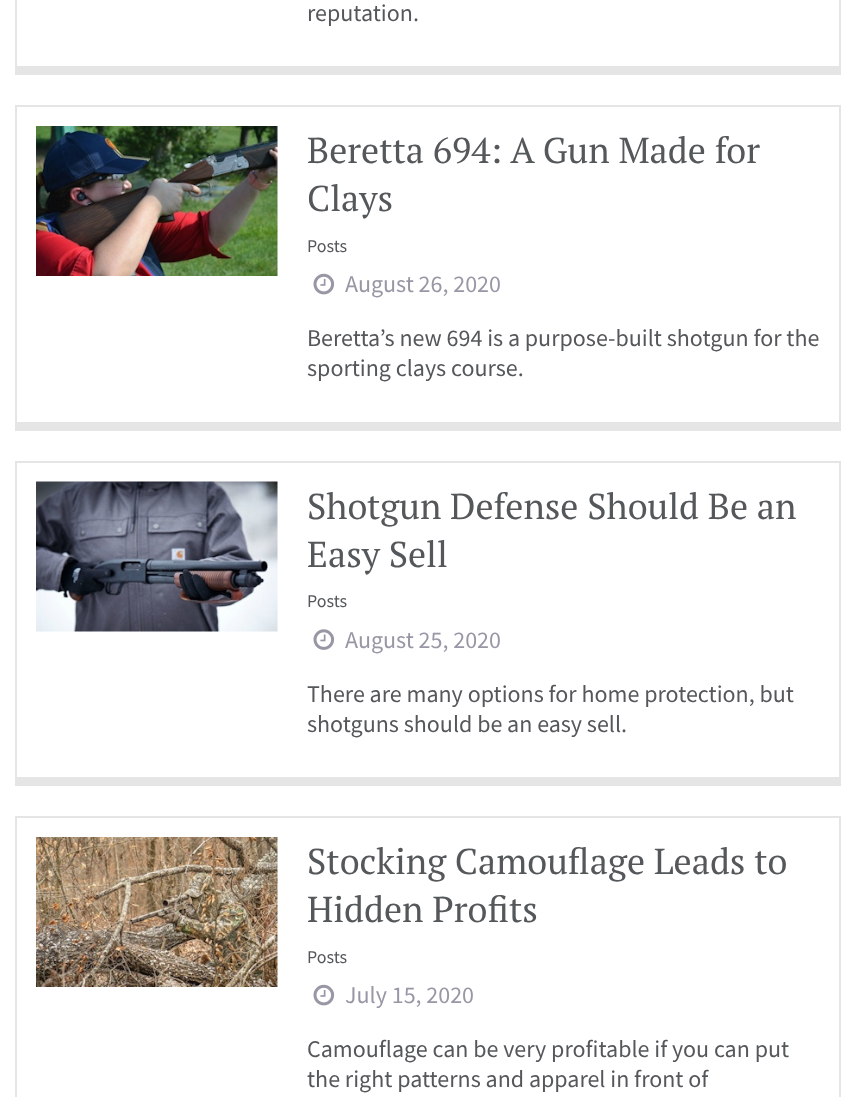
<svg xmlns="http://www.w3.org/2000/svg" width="854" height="1097">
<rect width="100%" height="100%" fill="#fff"/>
<rect x="839" width="2" height="75" fill="#e5e5e5"/>
<rect x="17" y="66" width="822" height="9" fill="#e5e5e5"/>
<rect x="15" width="2" height="75" fill="#e5e5e5"/>
<text x="307" y="21" style="font-family:Source Sans Pro;font-size:24px;fill:#55585b">reputation.</text>
<rect x="15" y="105" width="825" height="2" fill="#e5e5e5"/>
<rect x="839" y="105" width="2" height="326" fill="#e5e5e5"/>
<rect x="17" y="422" width="822" height="9" fill="#e5e5e5"/>
<rect x="15" y="105" width="2" height="326" fill="#e5e5e5"/>
<image x="36" y="126" width="242" height="150" href="media/1.png"/>
<text x="307" y="163" style="font-family:PT Serif;font-size:36px;fill:#55585b">Beretta 694: A Gun Made for</text>
<text x="307" y="211" style="font-family:PT Serif;font-size:36px;fill:#55585b">Clays</text>
<text x="307" y="252" style="font-family:Source Sans Pro;font-size:18px;fill:#55585b">Posts</text>
<image x="313" y="273" width="22" height="22" href="media/2.png"/>
<text x="345" y="292" style="font-family:Source Sans Pro;font-size:24px;fill:#9797a5">August 26, 2020</text>
<text x="307" y="346" style="font-family:Source Sans Pro;font-size:24px;fill:#55585b">Beretta’s new 694 is a purpose-built shotgun for the</text>
<text x="307" y="376" style="font-family:Source Sans Pro;font-size:24px;fill:#55585b">sporting clays course.</text>
<rect x="15" y="461" width="825" height="2" fill="#e5e5e5"/>
<rect x="839" y="461" width="2" height="325" fill="#e5e5e5"/>
<rect x="17" y="777" width="822" height="9" fill="#e5e5e5"/>
<rect x="15" y="461" width="2" height="325" fill="#e5e5e5"/>
<image x="36" y="481" width="242" height="151" href="media/3.png"/>
<text x="307" y="519" style="font-family:PT Serif;font-size:36px;fill:#55585b">Shotgun Defense Should Be an</text>
<text x="307" y="567" style="font-family:PT Serif;font-size:36px;fill:#55585b">Easy Sell</text>
<text x="307" y="607" style="font-family:Source Sans Pro;font-size:18px;fill:#55585b">Posts</text>
<image x="313" y="629" width="22" height="21" href="media/4.png"/>
<text x="345" y="648" style="font-family:Source Sans Pro;font-size:24px;fill:#9797a5">August 25, 2020</text>
<text x="307" y="702" style="font-family:Source Sans Pro;font-size:24px;fill:#55585b">There are many options for home protection, but</text>
<text x="307" y="732" style="font-family:Source Sans Pro;font-size:24px;fill:#55585b">shotguns should be an easy sell.</text>
<rect x="15" y="816" width="825" height="2" fill="#e5e5e5"/>
<rect x="839" y="816" width="2" height="281" fill="#e5e5e5"/>
<rect x="15" y="816" width="2" height="281" fill="#e5e5e5"/>
<image x="36" y="837" width="242" height="150" href="media/5.png"/>
<text x="307" y="874" style="font-family:PT Serif;font-size:36px;fill:#55585b">Stocking Camouflage Leads to</text>
<text x="307" y="922" style="font-family:PT Serif;font-size:36px;fill:#55585b">Hidden Profits</text>
<text x="307" y="963" style="font-family:Source Sans Pro;font-size:18px;fill:#55585b">Posts</text>
<image x="313" y="984" width="22" height="22" href="media/2.png"/>
<text x="345" y="1003" style="font-family:Source Sans Pro;font-size:24px;fill:#9797a5">July 15, 2020</text>
<text x="307" y="1057" style="font-family:Source Sans Pro;font-size:24px;fill:#55585b">Camouflage can be very profitable if you can put</text>
<text x="307" y="1087" style="font-family:Source Sans Pro;font-size:24px;fill:#55585b">the right patterns and apparel in front of</text>
</svg>
